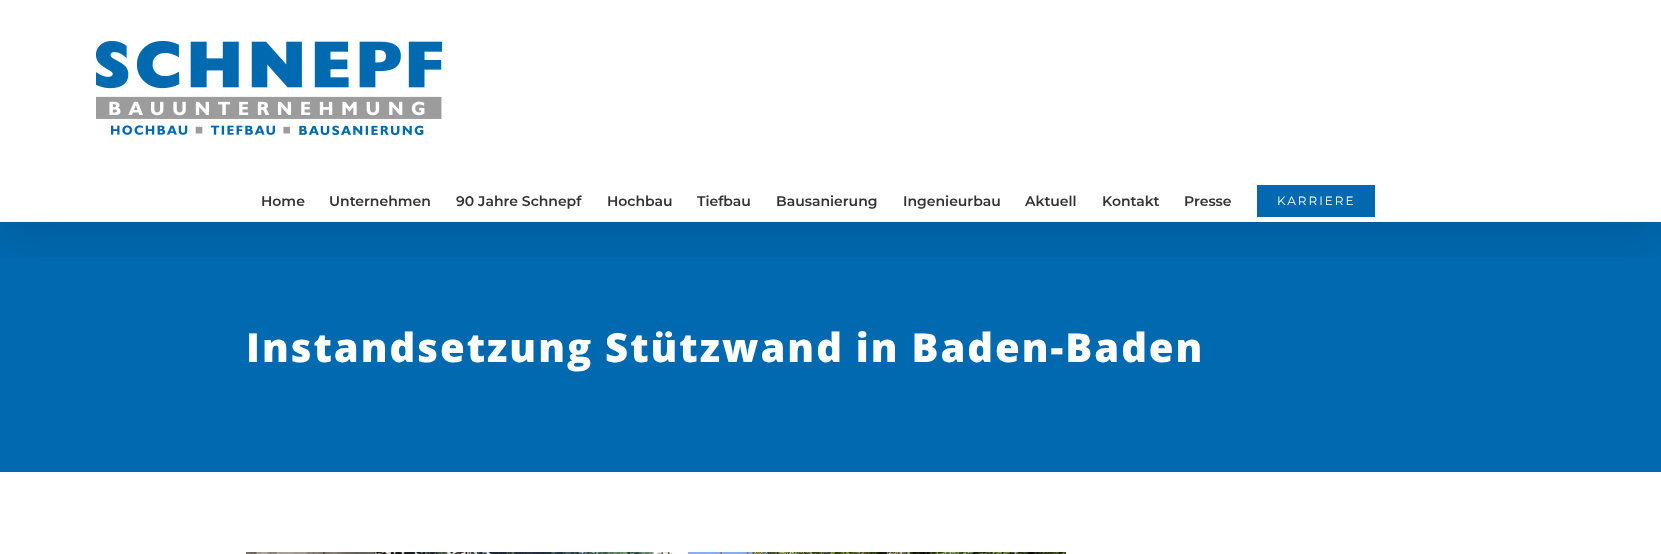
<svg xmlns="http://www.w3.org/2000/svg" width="1661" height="554">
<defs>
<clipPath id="clip1"><rect x="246" y="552" width="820" height="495"/></clipPath>
<clipPath id="clip2"><rect x="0" y="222" width="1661" height="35"/></clipPath>
</defs>
<rect width="100%" height="100%" fill="#fff"/>
<image x="246" y="552" width="408" height="2" href="media/1.png"/>
<image x="658" y="552" width="408" height="2" href="media/2.png"/>
<rect y="222" width="1661" height="250" fill="#0069af"/>
<g clip-path="url(#clip1)">
<rect x="654" y="-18" width="3" height="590" fill="#33333380" filter="blur(6px)"/>
</g>
<rect x="654" y="552" width="3" height="2" fill="#fff"/>
<g clip-path="url(#clip2)">
<rect x="2" y="12" width="1657" height="218" fill="#00000024" filter="blur(25px)"/>
</g>
<image x="96" y="41" width="346" height="94" href="media/3.png"/>
<text x="261" y="206" style="font-family:Montserrat;font-size:14px;font-weight:600;fill:#333">Home</text>
<text x="329" y="206" style="font-family:Montserrat;font-size:14px;font-weight:600;fill:#333">Unternehmen</text>
<text x="456" y="206" style="font-family:Montserrat;font-size:14px;font-weight:600;fill:#333">90 Jahre Schnepf</text>
<text x="607" y="206" style="font-family:Montserrat;font-size:14px;font-weight:600;fill:#333">Hochbau</text>
<text x="697" y="206" style="font-family:Montserrat;font-size:14px;font-weight:600;fill:#333">Tiefbau</text>
<text x="776" y="206" style="font-family:Montserrat;font-size:14px;font-weight:600;fill:#333">Bausanierung</text>
<text x="903" y="206" style="font-family:Montserrat;font-size:14px;font-weight:600;fill:#333">Ingenieurbau</text>
<text x="1025" y="206" style="font-family:Montserrat;font-size:14px;font-weight:600;fill:#333">Aktuell</text>
<text x="1102" y="206" style="font-family:Montserrat;font-size:14px;font-weight:600;fill:#333">Kontakt</text>
<text x="1184" y="206" style="font-family:Montserrat;font-size:14px;font-weight:600;fill:#333">Presse</text>
<rect x="1257" y="185" width="118" height="32" fill="#0069af"/>
<text x="1277" y="205" style="font-family:Montserrat;font-size:12px;letter-spacing:2px;fill:#fff">KARRIERE</text>
<text x="246" y="362" word-spacing="-0.5" style="font-family:Open Sans;font-size:40px;font-weight:800;letter-spacing:2px;fill:#fff">Instandsetzung Stützwand in Baden-Baden</text>
</svg>
